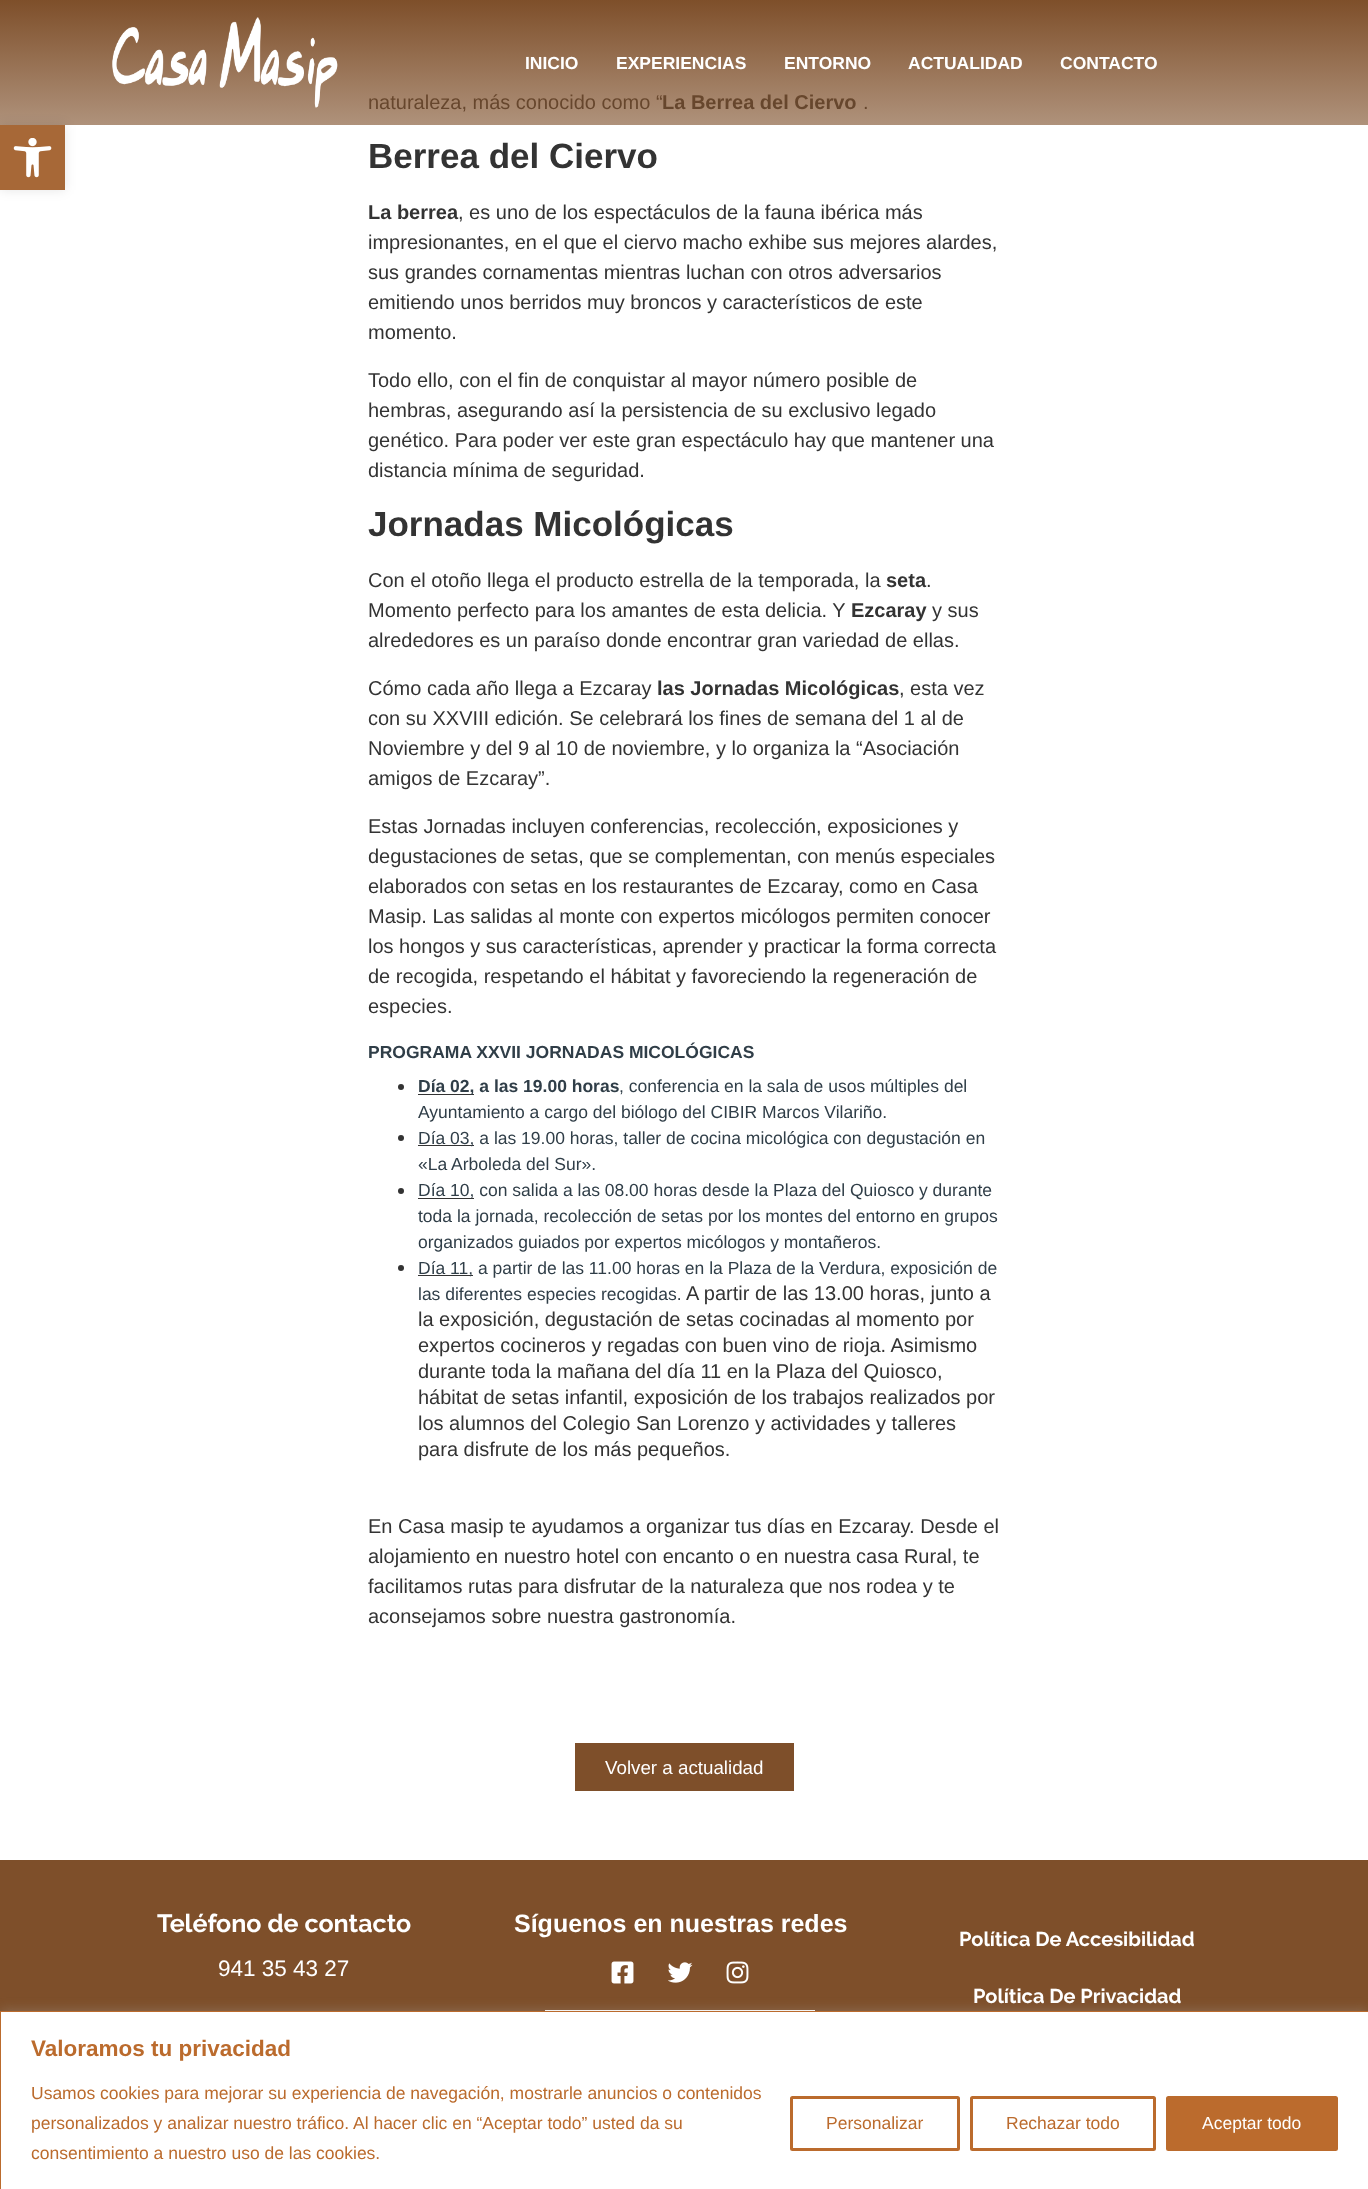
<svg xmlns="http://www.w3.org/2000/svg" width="1368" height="2189">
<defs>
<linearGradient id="g1" gradientUnits="userSpaceOnUse" x1="684" y1="0" x2="684" y2="125"><stop offset="0" stop-color="#7e4f2a"/><stop offset="1" stop-color="#7e4f2a" stop-opacity="0.62"/></linearGradient>
</defs>
<rect width="100%" height="100%" fill="#fff"/>
<text x="368" y="109" style="font-family:Liberation Sans;font-size:20px;fill:#333">naturaleza, más conocido como “</text>
<text x="662" y="109" style="font-family:Liberation Sans;font-size:20px;font-weight:bold;fill:#333">La Berrea del Ciervo</text>
<text x="863" y="109" style="font-family:Liberation Sans;font-size:20px;fill:#333">.</text>
<rect width="1368" height="125" fill="url(#g1)"/>
<image x="112" y="17" width="226" height="91" href="media/1.png"/>
<text x="525" y="69" style="font-family:Liberation Sans;font-size:17.5px;font-weight:bold;fill:#fff">INICIO</text>
<text x="616" y="69" style="font-family:Liberation Sans;font-size:17.5px;font-weight:bold;fill:#fff">EXPERIENCIAS</text>
<text x="784" y="69" style="font-family:Liberation Sans;font-size:17.5px;font-weight:bold;fill:#fff">ENTORNO</text>
<text x="908" y="69" style="font-family:Liberation Sans;font-size:17.5px;font-weight:bold;fill:#fff">ACTUALIDAD</text>
<text x="1060" y="69" style="font-family:Liberation Sans;font-size:17.5px;font-weight:bold;fill:#fff">CONTACTO</text>
<rect y="125" width="65" height="65" fill="#0000001a" filter="blur(6px)"/>
<rect y="125" width="65" height="65" fill="#a76837"/>
<image x="13" y="138" width="39" height="40" href="media/2.png"/>
<text x="368" y="168" style="font-family:Liberation Sans;font-size:35px;font-weight:bold;fill:#333">Berrea del Ciervo</text>
<text x="368" y="219" style="font-family:Liberation Sans;font-size:20px;font-weight:bold;fill:#333">La berrea</text>
<text x="458" y="219" style="font-family:Liberation Sans;font-size:20px;fill:#333">, es uno de los espectáculos de la fauna ibérica más</text>
<text x="368" y="249" style="font-family:Liberation Sans;font-size:20px;fill:#333">impresionantes, en el que el ciervo macho exhibe sus mejores alardes,</text>
<text x="368" y="279" style="font-family:Liberation Sans;font-size:20px;fill:#333">sus grandes cornamentas mientras luchan con otros adversarios</text>
<text x="368" y="309" style="font-family:Liberation Sans;font-size:20px;fill:#333">emitiendo unos berridos muy broncos y característicos de este</text>
<text x="368" y="339" style="font-family:Liberation Sans;font-size:20px;fill:#333">momento.</text>
<text x="368" y="387" style="font-family:Liberation Sans;font-size:20px;fill:#333">Todo ello, con el fin de conquistar al mayor número posible de</text>
<text x="368" y="417" style="font-family:Liberation Sans;font-size:20px;fill:#333">hembras, asegurando así la persistencia de su exclusivo legado</text>
<text x="368" y="447" style="font-family:Liberation Sans;font-size:20px;fill:#333">genético. Para poder ver este gran espectáculo hay que mantener una</text>
<text x="368" y="477" style="font-family:Liberation Sans;font-size:20px;fill:#333">distancia mínima de seguridad.</text>
<text x="368" y="536" style="font-family:Liberation Sans;font-size:35px;font-weight:bold;fill:#333">Jornadas Micológicas</text>
<text x="368" y="587" style="font-family:Liberation Sans;font-size:20px;fill:#333">Con el otoño llega el producto estrella de la temporada, la</text>
<text x="886" y="587" style="font-family:Liberation Sans;font-size:20px;font-weight:bold;fill:#333">seta</text>
<text x="926" y="587" style="font-family:Liberation Sans;font-size:20px;fill:#333">.</text>
<text x="368" y="617" style="font-family:Liberation Sans;font-size:20px;fill:#333">Momento perfecto para los amantes de esta delicia. Y</text>
<text x="851" y="617" style="font-family:Liberation Sans;font-size:20px;font-weight:bold;fill:#333">Ezcaray</text>
<text x="932" y="617" style="font-family:Liberation Sans;font-size:20px;fill:#333">y sus</text>
<text x="368" y="647" style="font-family:Liberation Sans;font-size:20px;fill:#333">alrededores es un paraíso donde encontrar gran variedad de ellas.</text>
<text x="368" y="695" style="font-family:Liberation Sans;font-size:20px;fill:#333">Cómo cada año llega a Ezcaray</text>
<text x="657" y="695" style="font-family:Liberation Sans;font-size:20px;font-weight:bold;fill:#333">las Jornadas Micológicas</text>
<text x="899" y="695" style="font-family:Liberation Sans;font-size:20px;fill:#333">, esta vez</text>
<text x="368" y="725" style="font-family:Liberation Sans;font-size:20px;fill:#333">con su XXVIII edición. Se celebrará los fines de semana del 1 al de</text>
<text x="368" y="755" style="font-family:Liberation Sans;font-size:20px;fill:#333">Noviembre y del 9 al 10 de noviembre, y lo organiza la “Asociación</text>
<text x="368" y="785" style="font-family:Liberation Sans;font-size:20px;fill:#333">amigos de Ezcaray”.</text>
<text x="368" y="833" style="font-family:Liberation Sans;font-size:20px;fill:#333">Estas Jornadas incluyen conferencias, recolección, exposiciones y</text>
<text x="368" y="863" style="font-family:Liberation Sans;font-size:20px;fill:#333">degustaciones de setas, que se complementan, con menús especiales</text>
<text x="368" y="893" style="font-family:Liberation Sans;font-size:20px;fill:#333">elaborados con setas en los restaurantes de Ezcaray, como en Casa</text>
<text x="368" y="923" style="font-family:Liberation Sans;font-size:20px;fill:#333">Masip. Las salidas al monte con expertos micólogos permiten conocer</text>
<text x="368" y="953" style="font-family:Liberation Sans;font-size:20px;fill:#333">los hongos y sus características, aprender y practicar la forma correcta</text>
<text x="368" y="983" style="font-family:Liberation Sans;font-size:20px;fill:#333">de recogida, respetando el hábitat y favoreciendo la regeneración de</text>
<text x="368" y="1013" style="font-family:Liberation Sans;font-size:20px;fill:#333">especies.</text>
<text x="368" y="1058" style="font-family:Liberation Sans;font-size:17.5px;font-weight:bold;fill:#303e48">PROGRAMA XXVII JORNADAS MICOLÓGICAS</text>
<circle cx="401" cy="1087" r="3" fill="#333"/>
<rect x="418" y="1094" width="56" height="1" fill="#333"/>
<text x="418" y="1092" style="font-family:Liberation Sans;font-size:17.5px;font-weight:bold;fill:#303e48">Día 02, a las 19.00 horas</text>
<text x="619" y="1092" style="font-family:Liberation Sans;font-size:17.5px;fill:#303e48">, conferencia en la sala de usos múltiples del</text>
<text x="418" y="1118" style="font-family:Liberation Sans;font-size:17.5px;fill:#303e48">Ayuntamiento a cargo del biólogo del CIBIR Marcos Vilariño.</text>
<circle cx="401" cy="1138" r="3" fill="#333"/>
<rect x="418" y="1145" width="56" height="1" fill="#333"/>
<text x="418" y="1144" style="font-family:Liberation Sans;font-size:17.5px;fill:#303e48">Día 03, a las 19.00 horas, taller de cocina micológica con degustación en</text>
<text x="418" y="1170" style="font-family:Liberation Sans;font-size:17.5px;fill:#303e48">«La Arboleda del Sur».</text>
<circle cx="401" cy="1191" r="3" fill="#333"/>
<rect x="418" y="1198" width="56" height="1" fill="#333"/>
<text x="418" y="1196" style="font-family:Liberation Sans;font-size:17.5px;fill:#303e48">Día 10, con salida a las 08.00 horas desde la Plaza del Quiosco y durante</text>
<text x="418" y="1222" style="font-family:Liberation Sans;font-size:17.5px;fill:#303e48">toda la jornada, recolección de setas por los montes del entorno en grupos</text>
<text x="418" y="1248" style="font-family:Liberation Sans;font-size:17.5px;fill:#303e48">organizados guiados por expertos micólogos y montañeros.</text>
<circle cx="401" cy="1268" r="3" fill="#333"/>
<rect x="418" y="1275" width="55" height="1" fill="#333"/>
<text x="418" y="1274" style="font-family:Liberation Sans;font-size:17.5px;fill:#303e48">Día 11, a partir de las 11.00 horas en la Plaza de la Verdura, exposición de</text>
<text x="418" y="1300" style="font-family:Liberation Sans;font-size:17.5px;fill:#303e48">las diferentes especies recogidas.</text>
<text x="686" y="1300" style="font-family:Liberation Sans;font-size:20px;fill:#333">A partir de las 13.00 horas, junto a</text>
<text x="418" y="1326" style="font-family:Liberation Sans;font-size:20px;fill:#333">la exposición, degustación de setas cocinadas al momento por</text>
<text x="418" y="1352" style="font-family:Liberation Sans;font-size:20px;fill:#333">expertos cocineros y regadas con buen vino de rioja. Asimismo</text>
<text x="418" y="1378" style="font-family:Liberation Sans;font-size:20px;fill:#333">durante toda la mañana del día 11 en la Plaza del Quiosco,</text>
<text x="418" y="1404" style="font-family:Liberation Sans;font-size:20px;fill:#333">hábitat de setas infantil, exposición de los trabajos realizados por</text>
<text x="418" y="1430" style="font-family:Liberation Sans;font-size:20px;fill:#333">los alumnos del Colegio San Lorenzo y actividades y talleres</text>
<text x="418" y="1456" style="font-family:Liberation Sans;font-size:20px;fill:#333">para disfrute de los más pequeños.</text>
<text x="368" y="1533" style="font-family:Liberation Sans;font-size:20px;fill:#333">En Casa masip te ayudamos a organizar tus días en Ezcaray. Desde el</text>
<text x="368" y="1563" style="font-family:Liberation Sans;font-size:20px;fill:#333">alojamiento en nuestro hotel con encanto o en nuestra casa Rural, te</text>
<text x="368" y="1593" style="font-family:Liberation Sans;font-size:20px;fill:#333">facilitamos rutas para disfrutar de la naturaleza que nos rodea y te</text>
<text x="368" y="1623" style="font-family:Liberation Sans;font-size:20px;fill:#333">aconsejamos sobre nuestra gastronomía.</text>
<rect x="575" y="1743" width="219" height="48" fill="#7e4f2a"/>
<text x="605" y="1774" style="font-family:Liberation Sans;font-size:18.75px;fill:#fff">Volver a actualidad</text>
<rect y="1860" width="1368" height="151" fill="#7e4f2a"/>
<text x="157" y="1932" style="font-family:Raleway;font-size:25px;font-weight:bold;fill:#fff">Teléfono de contacto</text>
<text x="218" y="1976" style="font-family:Liberation Sans;font-size:22.5px;fill:#fff">941 35 43 27</text>
<text x="514" y="1932" style="font-family:Liberation Sans;font-size:25px;font-weight:bold;fill:#fff">Síguenos en nuestras redes</text>
<image x="611" y="1961" width="23" height="23" href="media/3.png"/>
<image x="668" y="1962" width="25" height="21" href="media/4.png"/>
<image x="726" y="1961" width="23" height="23" href="media/5.png"/>
<image x="545" y="2010" width="270" height="1" href="media/6.png"/>
<text x="959" y="1946" style="font-family:Raleway;font-size:20px;font-weight:bold;fill:#fff">Política De Accesibilidad</text>
<text x="973" y="2003" style="font-family:Raleway;font-size:20px;font-weight:bold;fill:#fff">Política De Privacidad</text>
<rect y="2010" width="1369" height="179" fill="#acabab4d" filter="blur(6px)"/>
<rect x="0.5" y="2011.5" width="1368" height="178" fill="#fff" stroke="#bb6b2d"/>
<text x="31" y="2056" style="font-family:Liberation Sans;font-size:22.5px;font-weight:bold;fill:#bb6b2d">Valoramos tu privacidad</text>
<text x="31" y="2099" style="font-family:Liberation Sans;font-size:17.5px;fill:#bb6b2d">Usamos cookies para mejorar su experiencia de navegación, mostrarle anuncios o contenidos</text>
<text x="31" y="2129" style="font-family:Liberation Sans;font-size:17.5px;fill:#bb6b2d">personalizados y analizar nuestro tráfico. Al hacer clic en “Aceptar todo” usted da su</text>
<text x="31" y="2159" style="font-family:Liberation Sans;font-size:17.5px;fill:#bb6b2d">consentimiento a nuestro uso de las cookies.</text>
<rect x="791.5" y="2097.5" width="167" height="52" rx="1" fill="none" stroke="#bb6b2d" stroke-width="3"/>
<text x="826" y="2129" style="font-family:Liberation Sans;font-size:17.5px;fill:#bb6b2d">Personalizar</text>
<rect x="971.5" y="2097.5" width="183" height="52" rx="1" fill="none" stroke="#bb6b2d" stroke-width="3"/>
<text x="1006" y="2129" style="font-family:Liberation Sans;font-size:17.5px;fill:#bb6b2d">Rechazar todo</text>
<rect x="1167.5" y="2097.5" width="169" height="52" rx="1" fill="#bb6b2d" stroke="#bb6b2d" stroke-width="3"/>
<text x="1202" y="2129" style="font-family:Liberation Sans;font-size:17.5px;fill:#fff">Aceptar todo</text>
</svg>
